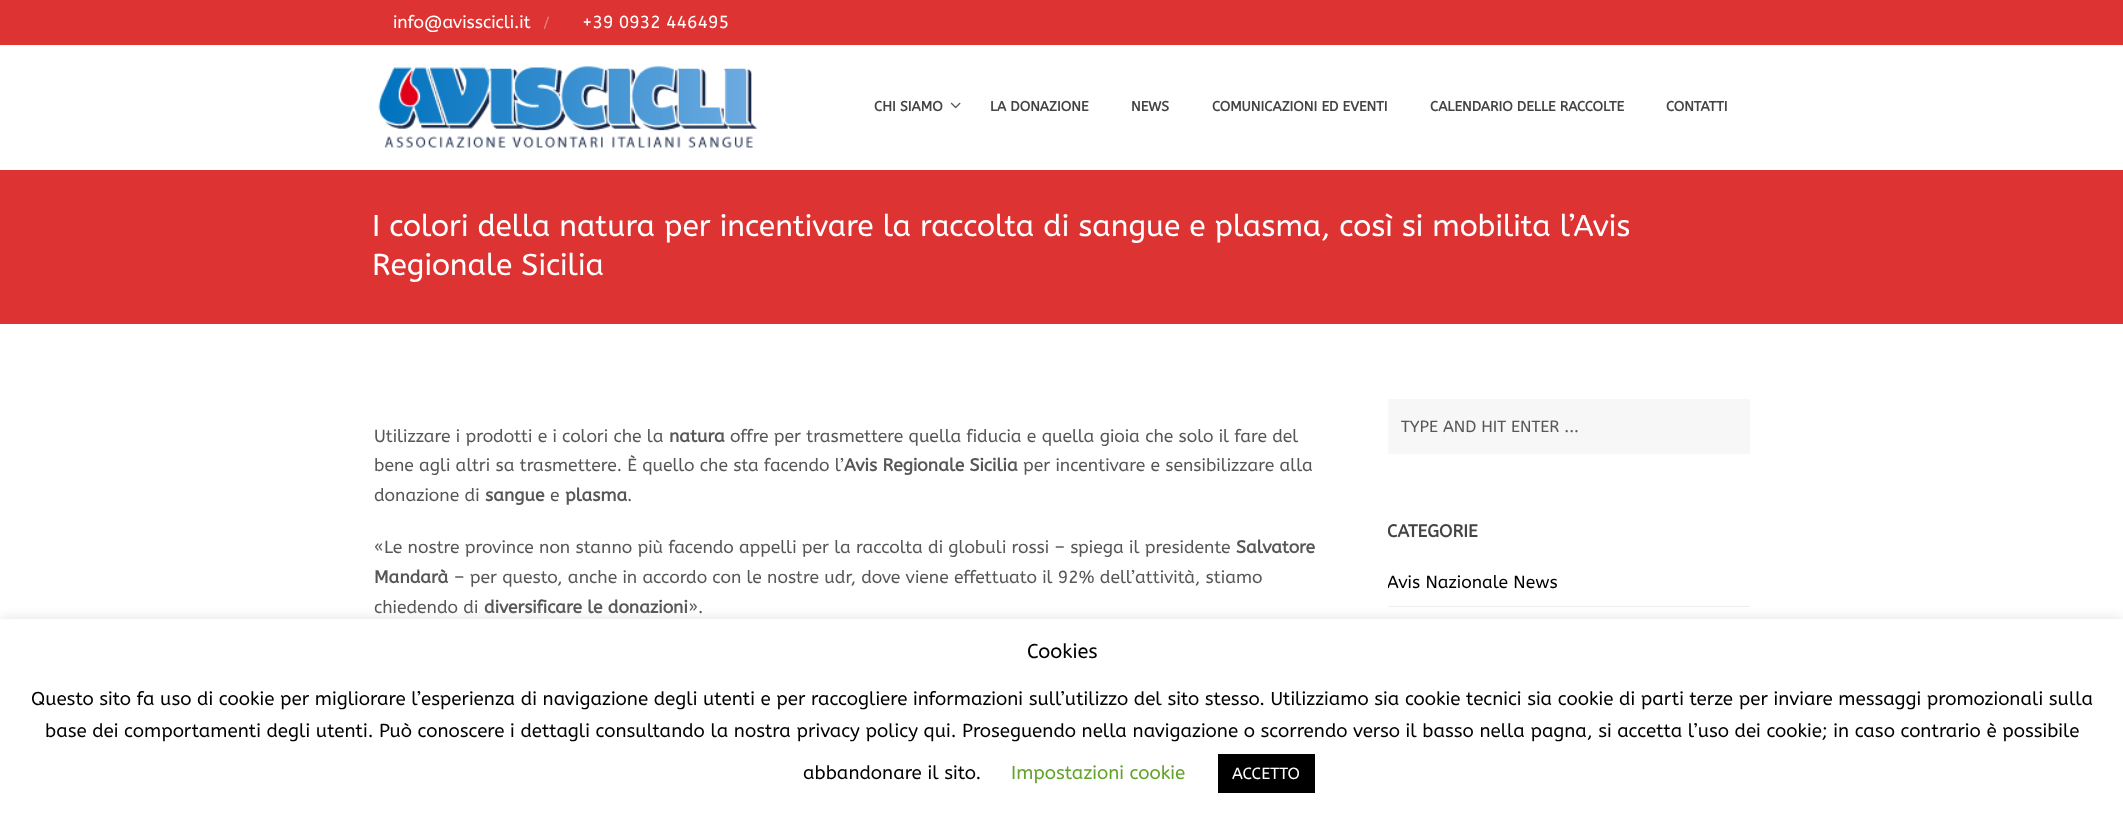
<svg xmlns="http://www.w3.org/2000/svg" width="2123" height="813">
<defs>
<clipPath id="clip1"><rect x="1388" y="516" width="362" height="224"/></clipPath>
</defs>
<rect width="100%" height="100%" fill="#fff"/>
<rect width="2123" height="45" fill="#d33"/>
<text x="393" y="28" style="font-family:ABeeZee;font-size:17.5px;fill:#fff">info@avisscicli.it</text>
<text x="543" y="28" style="font-family:ABeeZee;font-size:15px;fill:#eb8585">/</text>
<text x="582" y="28" style="font-family:ABeeZee;font-size:17.5px;fill:#fff">+39 0932 446495</text>
<image x="378" y="66" width="380" height="82" href="media/1.png"/>
<text x="874" y="111" style="font-family:ABeeZee;font-size:13.75px;font-weight:bold;fill:#444">CHI SIAMO</text>
<image x="950" y="102" width="11" height="7" href="media/2.png"/>
<text x="990" y="111" style="font-family:ABeeZee;font-size:13.75px;font-weight:bold;fill:#444">LA DONAZIONE</text>
<text x="1131" y="111" style="font-family:ABeeZee;font-size:13.75px;font-weight:bold;fill:#444">NEWS</text>
<text x="1212" y="111" style="font-family:ABeeZee;font-size:13.75px;font-weight:bold;fill:#444">COMUNICAZIONI ED EVENTI</text>
<text x="1430" y="111" style="font-family:ABeeZee;font-size:13.75px;font-weight:bold;fill:#444">CALENDARIO DELLE RACCOLTE</text>
<text x="1666" y="111" style="font-family:ABeeZee;font-size:13.75px;font-weight:bold;fill:#444">CONTATTI</text>
<rect y="170" width="2123" height="154" fill="#d33"/>
<text x="372" y="236" style="font-family:ABeeZee;font-size:30px;fill:#fff">I colori della natura per incentivare la raccolta di sangue e plasma, così si mobilita l’Avis</text>
<text x="372" y="275" style="font-family:ABeeZee;font-size:30px;fill:#fff">Regionale Sicilia</text>
<text x="374" y="442" style="font-family:ABeeZee;font-size:17.5px;fill:#575757">Utilizzare i prodotti e i colori che la</text>
<text x="669" y="442" style="font-family:ABeeZee;font-size:17.5px;font-weight:bold;fill:#575757">natura</text>
<text x="730" y="442" style="font-family:ABeeZee;font-size:17.5px;fill:#575757">offre per trasmettere quella fiducia e quella gioia che solo il fare del</text>
<text x="374" y="471" style="font-family:ABeeZee;font-size:17.5px;fill:#575757">bene agli altri sa trasmettere. È quello che sta facendo l’</text>
<text x="844" y="471" style="font-family:ABeeZee;font-size:17.5px;font-weight:bold;fill:#575757">Avis Regionale Sicilia</text>
<text x="1023" y="471" style="font-family:ABeeZee;font-size:17.5px;fill:#575757">per incentivare e sensibilizzare alla</text>
<text x="374" y="501" style="font-family:ABeeZee;font-size:17.5px;fill:#575757">donazione di</text>
<text x="485" y="501" style="font-family:ABeeZee;font-size:17.5px;font-weight:bold;fill:#575757">sangue</text>
<text x="550" y="501" style="font-family:ABeeZee;font-size:17.5px;fill:#575757">e</text>
<text x="565" y="501" style="font-family:ABeeZee;font-size:17.5px;font-weight:bold;fill:#575757">plasma</text>
<text x="627" y="501" style="font-family:ABeeZee;font-size:17.5px;fill:#575757">.</text>
<text x="374" y="553" style="font-family:ABeeZee;font-size:17.5px;fill:#575757">«Le nostre province non stanno più facendo appelli per la raccolta di globuli rossi – spiega il presidente</text>
<text x="1236" y="553" style="font-family:ABeeZee;font-size:17.5px;font-weight:bold;fill:#575757">Salvatore</text>
<text x="374" y="583" style="font-family:ABeeZee;font-size:17.5px;font-weight:bold;fill:#575757">Mandarà</text>
<text x="454" y="583" style="font-family:ABeeZee;font-size:17.5px;fill:#575757">– per questo, anche in accordo con le nostre udr, dove viene effettuato il 92% dell’attività, stiamo</text>
<text x="374" y="613" style="font-family:ABeeZee;font-size:17.5px;fill:#575757">chiedendo di</text>
<text x="484" y="613" style="font-family:ABeeZee;font-size:17.5px;font-weight:bold;fill:#575757">diversificare le donazioni</text>
<text x="688" y="613" style="font-family:ABeeZee;font-size:17.5px;fill:#575757">».</text>
<rect x="1388" y="399" width="362" height="55" fill="#f7f7f7"/>
<text x="1401" y="432" style="font-family:ABeeZee;font-size:16.25px;fill:#575757">TYPE AND HIT ENTER ...</text>
<g clip-path="url(#clip1)">
<text x="1387" y="537" style="font-family:ABeeZee;font-size:17.5px;font-weight:bold;fill:#444">CATEGORIE</text>
</g>
<rect x="1388" y="606" width="362" height="1" fill="#eee"/>
<g clip-path="url(#clip1)">
<text x="1387" y="588" style="font-family:ABeeZee;font-size:17.5px;fill:#000">Avis Nazionale News</text>
</g>
<rect y="618" width="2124" height="195" fill="#acabab4d" filter="blur(6px)"/>
<rect y="619" width="2123" height="194" fill="#fff"/>
<text x="1027" y="658" style="font-family:ABeeZee;font-size:20px;fill:#000">Cookies</text>
<text x="31" y="705" style="font-family:ABeeZee;font-size:18.75px;fill:#000">Questo sito fa uso di cookie per migliorare l’esperienza di navigazione degli utenti e per raccogliere informazioni sull’utilizzo del sito stesso. Utilizziamo sia cookie tecnici sia cookie di parti terze per inviare messaggi promozionali sulla</text>
<text x="45" y="737" style="font-family:ABeeZee;font-size:18.75px;fill:#000">base dei comportamenti degli utenti. Può conoscere i dettagli consultando la nostra privacy policy qui. Proseguendo nella navigazione o scorrendo verso il basso nella pagna, si accetta l’uso dei cookie; in caso contrario è possibile</text>
<text x="803" y="779" style="font-family:ABeeZee;font-size:18.75px;fill:#000">abbandonare il sito.</text>
<text x="1011" y="779" style="font-family:ABeeZee;font-size:18.75px;fill:#62a329">Impostazioni cookie</text>
<rect x="1218" y="754" width="97" height="39" fill="#000"/>
<text x="1232" y="779" style="font-family:ABeeZee;font-size:16.25px;fill:#fff">ACCETTO</text>
</svg>
